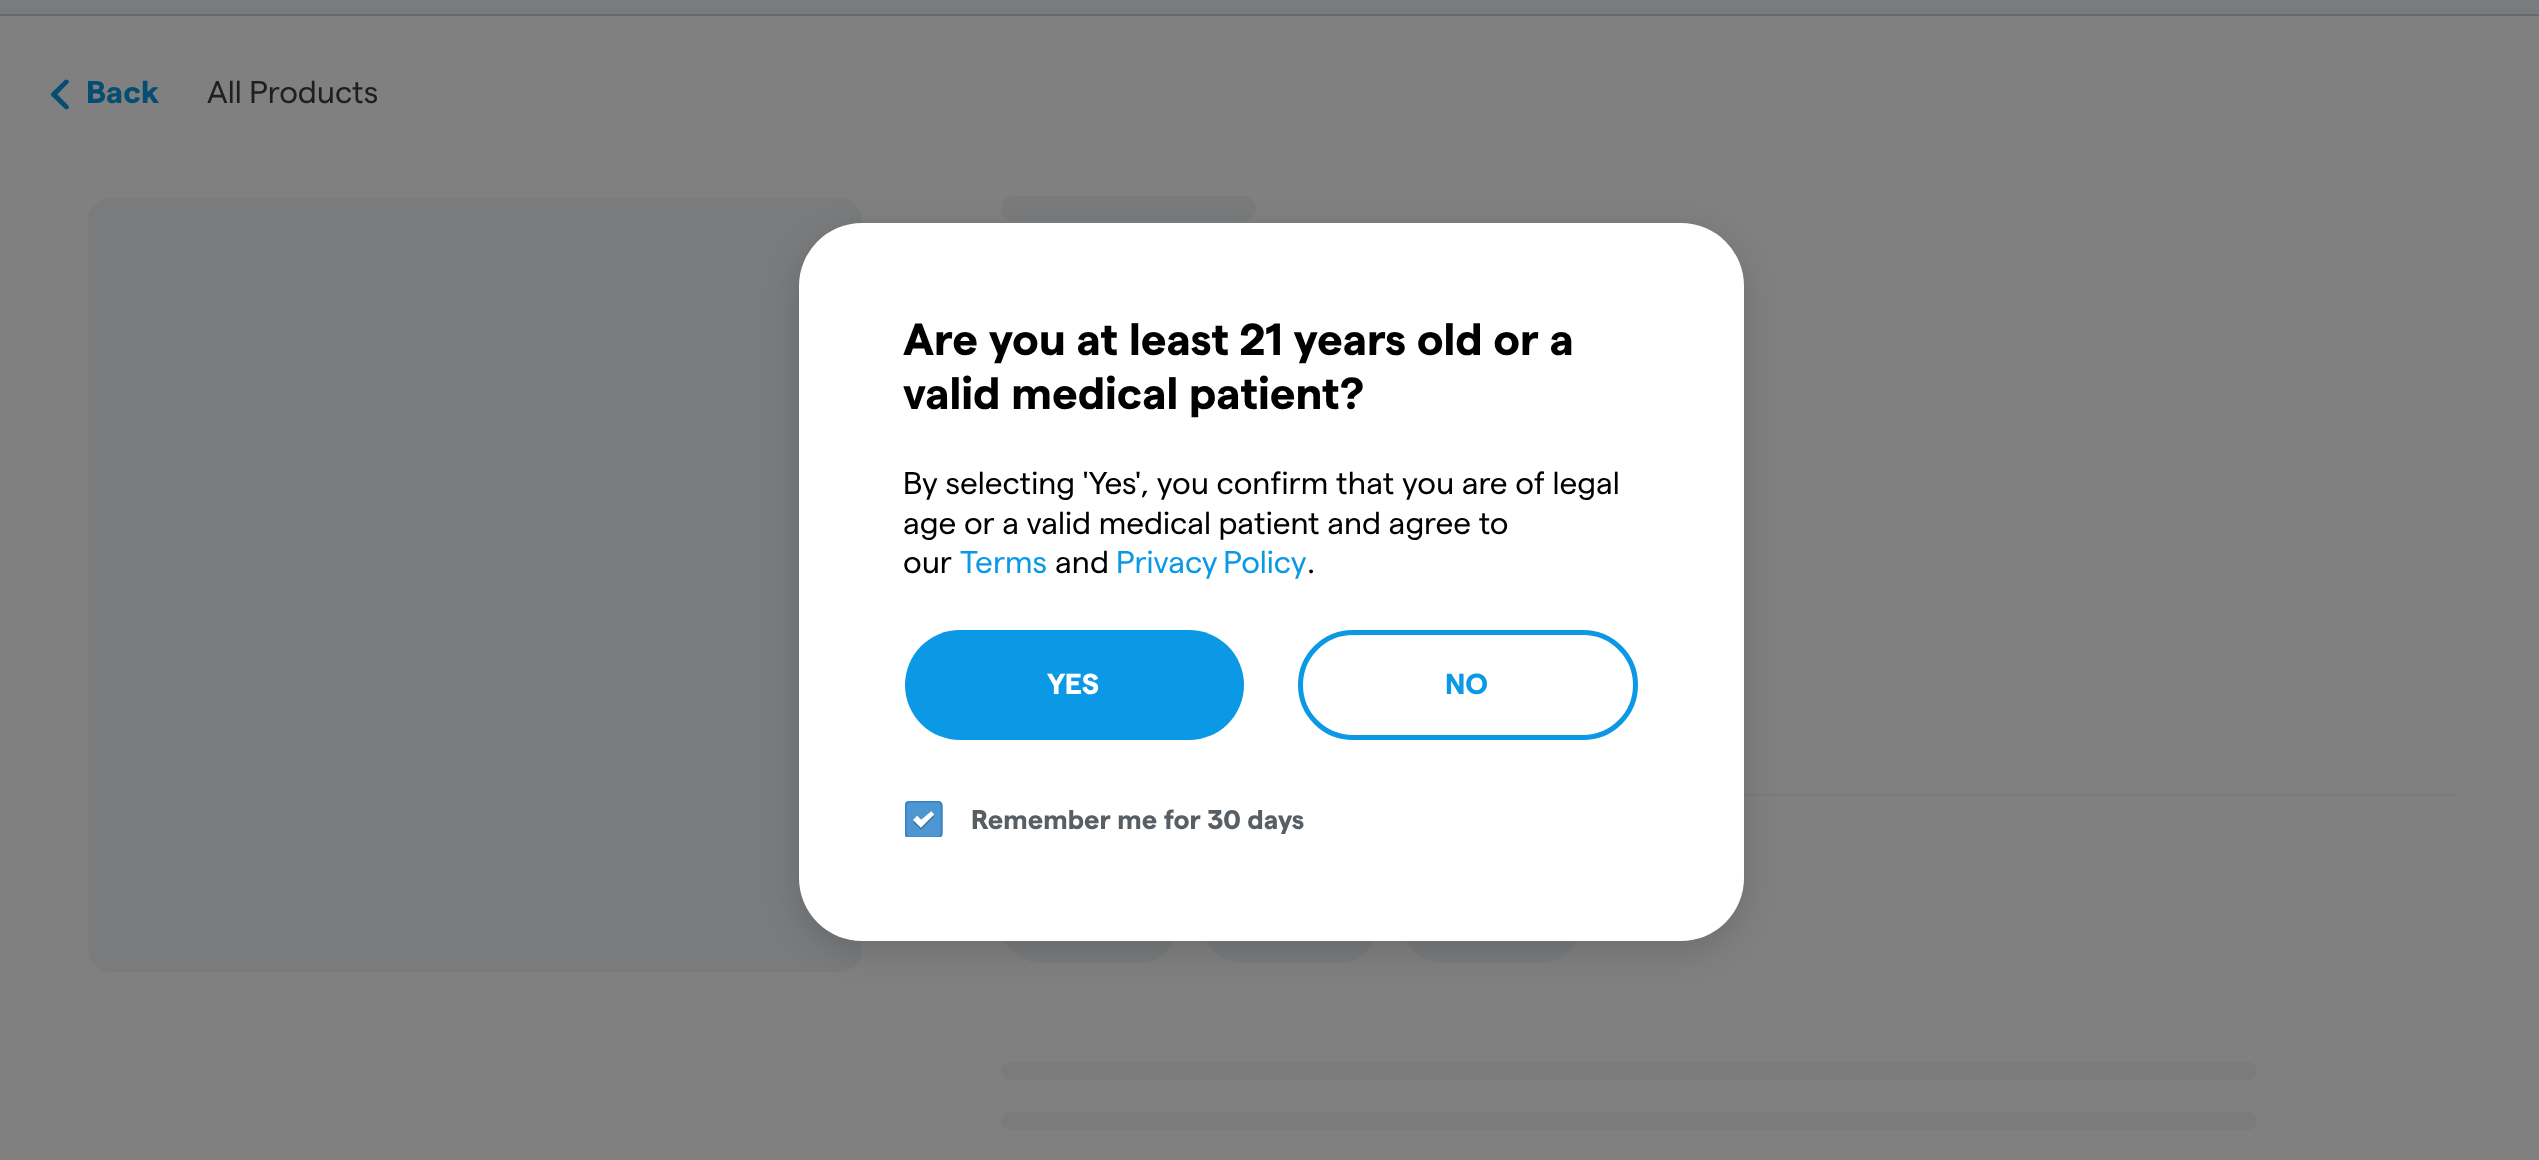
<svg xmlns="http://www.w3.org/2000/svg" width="2539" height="1160">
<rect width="100%" height="100%" fill="#808080"/>
<rect width="2539" height="14" fill="#7a7b7c"/>
<rect y="14" width="2539" height="2" fill="#64696e"/>
<image x="51" y="79" width="18" height="31" href="media/1.png"/>
<text x="86" y="103" style="font-family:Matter;font-size:31.5px;font-weight:bold;fill:#064d73">Back</text>
<text x="207" y="103" style="font-family:Matter;font-size:31.5px;fill:#1d1f20">All Products</text>
<rect x="88" y="198" width="774" height="774" rx="23" fill="#797b7c"/>
<rect x="1001" y="196" width="255" height="25" rx="12.5" fill="#797b7c"/>
<rect x="1001" y="794" width="1454" height="2" rx="1" fill="#797b7c"/>
<rect x="1001" y="884" width="178" height="79" rx="39.5" fill="#797b7c"/>
<rect x="1202" y="884" width="177" height="79" rx="39.5" fill="#797b7c"/>
<rect x="1402" y="884" width="178" height="79" rx="39.5" fill="#797b7c"/>
<rect x="1001" y="1062" width="1256" height="18" rx="9" fill="#797b7c"/>
<rect x="1001" y="1112" width="1256" height="18" rx="9" fill="#797b7c"/>
<rect x="799" y="234" width="945" height="718" rx="63" fill="#00000024" filter="blur(17px)"/>
<rect x="799" y="223" width="945" height="718" rx="63" fill="#fff"/>
<text x="903" y="355" style="font-family:Matter;font-size:45px;font-weight:bold;fill:#000">Are you at least 21 years old or a</text>
<text x="903" y="409" style="font-family:Matter;font-size:45px;font-weight:bold;fill:#000">valid medical patient?</text>
<text x="903" y="494" style="font-family:Matter;font-size:31.5px;fill:#000">By selecting 'Yes', you confirm that you are of legal</text>
<text x="903" y="534" style="font-family:Matter;font-size:31.5px;fill:#000">age or a valid medical patient and agree to</text>
<text x="903" y="573" style="font-family:Matter;font-size:31.5px;fill:#000">our</text>
<text x="960" y="573" style="font-family:Matter;font-size:31.5px;fill:#0b99e6">Terms</text>
<text x="1055" y="573" style="font-family:Matter;font-size:31.5px;fill:#000">and</text>
<text x="1116" y="573" word-spacing="-2" style="font-family:Matter;font-size:31.5px;fill:#0b99e6">Privacy Policy</text>
<text x="1307" y="573" style="font-family:Matter;font-size:31.5px;fill:#000">.</text>
<rect x="905" y="630" width="339" height="110" rx="55" fill="#0b99e6"/>
<text x="1047" y="694" style="font-family:Matter;font-size:29px;font-weight:bold;fill:#fff">YES</text>
<rect x="1300.5" y="632.5" width="335" height="105" rx="52.5" fill="none" stroke="#0b99e6" stroke-width="5"/>
<text x="1445" y="694" style="font-family:Matter;font-size:29px;font-weight:bold;fill:#0b99e6">NO</text>
<image x="905" y="801" width="38" height="36" href="media/2.png"/>
<text x="971" y="829" style="font-family:Matter;font-size:27px;font-weight:bold;fill:#575e64">Remember me for 30 days</text>
</svg>
